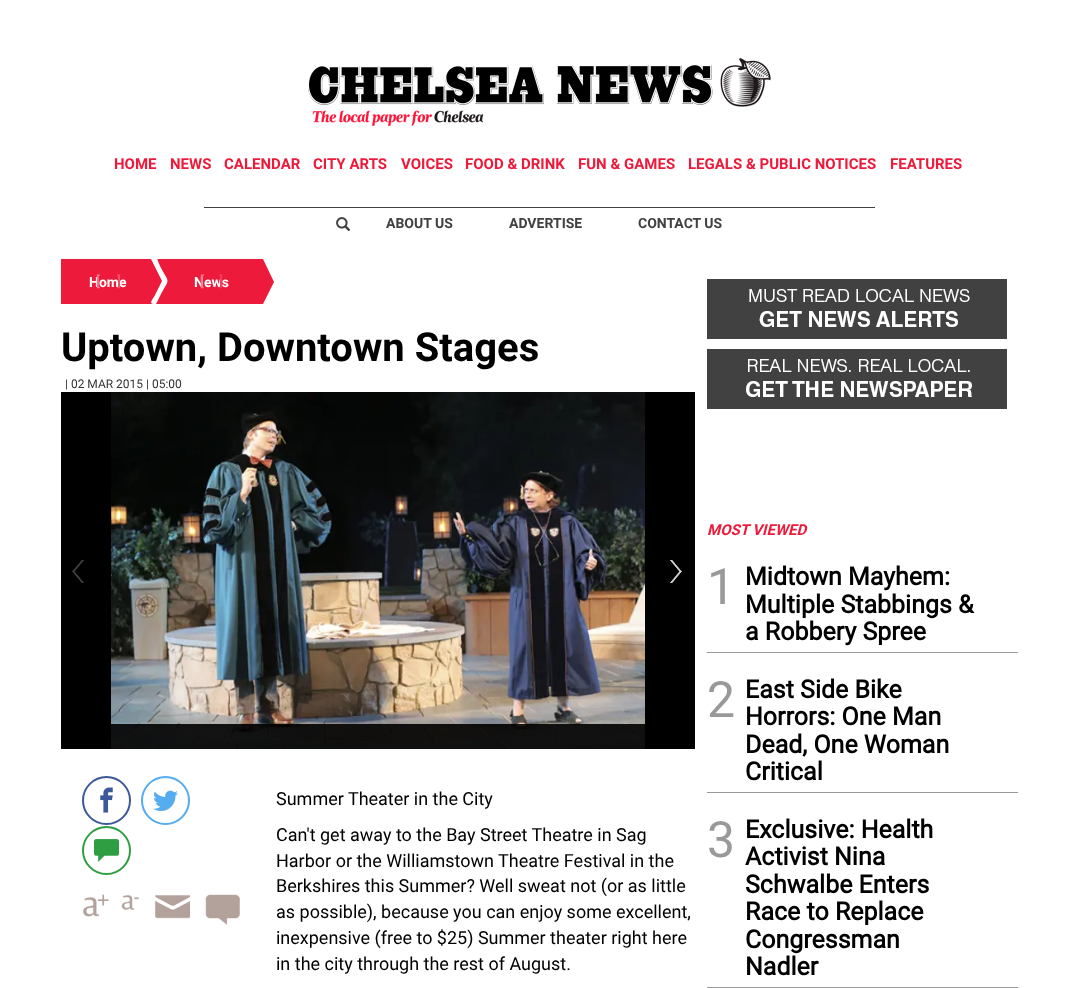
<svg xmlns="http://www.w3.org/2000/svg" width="1079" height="988">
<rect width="100%" height="100%" fill="#fff"/>
<image x="308" y="58" width="463" height="68" href="media/1.png"/>
<text x="114" y="169" style="font-family:Roboto;font-size:15px;font-weight:bold;fill:#ed1a3b">HOME</text>
<text x="170" y="169" style="font-family:Roboto;font-size:15px;font-weight:bold;fill:#ed1a3b">NEWS</text>
<text x="224" y="169" style="font-family:Roboto;font-size:15px;font-weight:bold;fill:#ed1a3b">CALENDAR</text>
<text x="313" y="169" style="font-family:Roboto;font-size:15px;font-weight:bold;fill:#ed1a3b">CITY ARTS</text>
<text x="401" y="169" style="font-family:Roboto;font-size:15px;font-weight:bold;fill:#ed1a3b">VOICES</text>
<text x="465" y="169" style="font-family:Roboto;font-size:15px;font-weight:bold;fill:#ed1a3b">FOOD &amp; DRINK</text>
<text x="578" y="169" style="font-family:Roboto;font-size:15px;font-weight:bold;fill:#ed1a3b">FUN &amp; GAMES</text>
<text x="688" y="169" style="font-family:Roboto;font-size:15px;font-weight:bold;fill:#ed1a3b">LEGALS &amp; PUBLIC NOTICES</text>
<text x="890" y="169" style="font-family:Roboto;font-size:15px;font-weight:bold;fill:#ed1a3b">FEATURES</text>
<rect x="204" y="207" width="671" height="1" fill="#414141"/>
<image x="336" y="217" width="15" height="14" href="media/2.png"/>
<text x="386" y="228" style="font-family:Roboto;font-size:14px;font-weight:bold;fill:#414141">ABOUT US</text>
<text x="509" y="228" style="font-family:Roboto;font-size:14px;font-weight:bold;fill:#414141">ADVERTISE</text>
<text x="638" y="228" style="font-family:Roboto;font-size:14px;font-weight:bold;fill:#414141">CONTACT US</text>
<rect x="61" y="259" width="202" height="45" fill="#ed1a3b"/>
<text x="89" y="287" style="font-family:Roboto;font-size:14px;font-weight:bold;fill:#fff">Home</text>
<text x="96" y="286" style="font-family:Roboto;font-size:14px;font-weight:bold;fill:#f57a8d">[</text>
<text x="117" y="286" style="font-family:Roboto;font-size:14px;font-weight:bold;fill:#f1516a">]</text>
<path d="M152 258c7 0 4-1 8 8c10 19 10 11 0 30l-2 4c-2 4-1 4-4 4c-6 0-1-5 1-9l7-14l-11-22z" fill="#fff"/>
<text x="194" y="287" style="font-family:Roboto;font-size:14px;font-weight:bold;fill:#fff">News</text>
<text x="200" y="286" style="font-family:Roboto;font-size:14px;font-weight:bold;fill:#f57a8d">[</text>
<text x="219" y="286" style="font-family:Roboto;font-size:14px;font-weight:bold;fill:#f03f5a">]</text>
<path d="M263 304v-45l11 23z" fill="#ed1a3b"/>
<text x="61" y="361" style="font-family:Roboto;font-size:40px;font-weight:bold;fill:#000">Uptown, Downtown Stages</text>
<text x="65" y="388" style="font-family:Roboto;font-size:12px;fill:#333">| 02 MAR 2015 | 05:00</text>
<rect x="61" y="392" width="634" height="357" fill="#000"/>
<image x="111" y="392" width="534" height="357" href="media/3.png"/>
<rect x="111" y="724" width="534" height="25" fill="#000000e6"/>
<image x="72" y="560" width="12" height="23" href="media/4.png"/>
<image x="670" y="560" width="12" height="23" href="media/5.png"/>
<circle cx="106.5" cy="800.5" r="23.5" fill="none" stroke="#3b5998" stroke-width="2"/>
<image x="100" y="787" width="13" height="26" href="media/6.png"/>
<circle cx="165.5" cy="800.5" r="23.5" fill="none" stroke="#55acee" stroke-width="2"/>
<image x="153" y="790" width="25" height="21" href="media/7.png"/>
<circle cx="106.5" cy="850.5" r="23.5" fill="none" stroke="#2f9e42" stroke-width="2"/>
<image x="94" y="839" width="25" height="23" href="media/8.png"/>
<image x="83" y="894" width="26" height="23" href="media/9.png"/>
<image x="121" y="895" width="18" height="15" href="media/10.png"/>
<image x="154" y="895" width="36" height="24" href="media/11.png"/>
<image x="205" y="894" width="35" height="31" href="media/12.png"/>
<text x="276" y="805" style="font-family:Roboto;font-size:18px;fill:#000">Summer Theater in the City</text>
<text x="276" y="841" style="font-family:Roboto;font-size:18px;fill:#000">Can't get away to the Bay Street Theatre in Sag</text>
<text x="276" y="867" style="font-family:Roboto;font-size:18px;fill:#000">Harbor or the Williamstown Theatre Festival in the</text>
<text x="276" y="892" style="font-family:Roboto;font-size:18px;fill:#000">Berkshires this Summer? Well sweat not (or as little</text>
<text x="276" y="918" style="font-family:Roboto;font-size:18px;fill:#000">as possible), because you can enjoy some excellent,</text>
<text x="276" y="944" style="font-family:Roboto;font-size:18px;fill:#000">inexpensive (free to $25) Summer theater right here</text>
<text x="276" y="970" style="font-family:Roboto;font-size:18px;fill:#000">in the city through the rest of August.</text>
<image x="707" y="279" width="300" height="60" href="media/13.png"/>
<image x="707" y="349" width="300" height="60" href="media/14.png"/>
<text x="707" y="535" style="font-family:Roboto;font-size:15px;font-weight:bold;font-style:italic;fill:#ed1a3b">MOST VIEWED</text>
<rect x="707" y="652" width="311" height="1" fill="#999"/>
<text x="707" y="604" style="font-family:Roboto;font-size:50px;fill:#999">1</text>
<text x="745" y="585" style="font-family:'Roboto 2';font-size:25px;font-weight:bold;fill:#000">Midtown Mayhem:</text>
<text x="745" y="613" style="font-family:'Roboto 2';font-size:25px;font-weight:bold;fill:#000">Multiple Stabbings &amp;</text>
<text x="745" y="640" style="font-family:'Roboto 2';font-size:25px;font-weight:bold;fill:#000">a Robbery Spree</text>
<rect x="707" y="792" width="311" height="1" fill="#999"/>
<text x="707" y="717" style="font-family:Roboto;font-size:50px;fill:#999">2</text>
<text x="745" y="698" style="font-family:'Roboto 2';font-size:25px;font-weight:bold;fill:#000">East Side Bike</text>
<text x="745" y="725" style="font-family:'Roboto 2';font-size:25px;font-weight:bold;fill:#000">Horrors: One Man</text>
<text x="745" y="753" style="font-family:'Roboto 2';font-size:25px;font-weight:bold;fill:#000">Dead, One Woman</text>
<text x="745" y="780" style="font-family:'Roboto 2';font-size:25px;font-weight:bold;fill:#000">Critical</text>
<rect x="707" y="987" width="311" height="1" fill="#999"/>
<text x="707" y="857" style="font-family:Roboto;font-size:50px;fill:#999">3</text>
<text x="745" y="838" style="font-family:'Roboto 2';font-size:25px;font-weight:bold;fill:#000">Exclusive: Health</text>
<text x="745" y="865" style="font-family:'Roboto 2';font-size:25px;font-weight:bold;fill:#000">Activist Nina</text>
<text x="745" y="893" style="font-family:'Roboto 2';font-size:25px;font-weight:bold;fill:#000">Schwalbe Enters</text>
<text x="745" y="920" style="font-family:'Roboto 2';font-size:25px;font-weight:bold;fill:#000">Race to Replace</text>
<text x="745" y="948" style="font-family:'Roboto 2';font-size:25px;font-weight:bold;fill:#000">Congressman</text>
<text x="745" y="975" style="font-family:'Roboto 2';font-size:25px;font-weight:bold;fill:#000">Nadler</text>
</svg>
